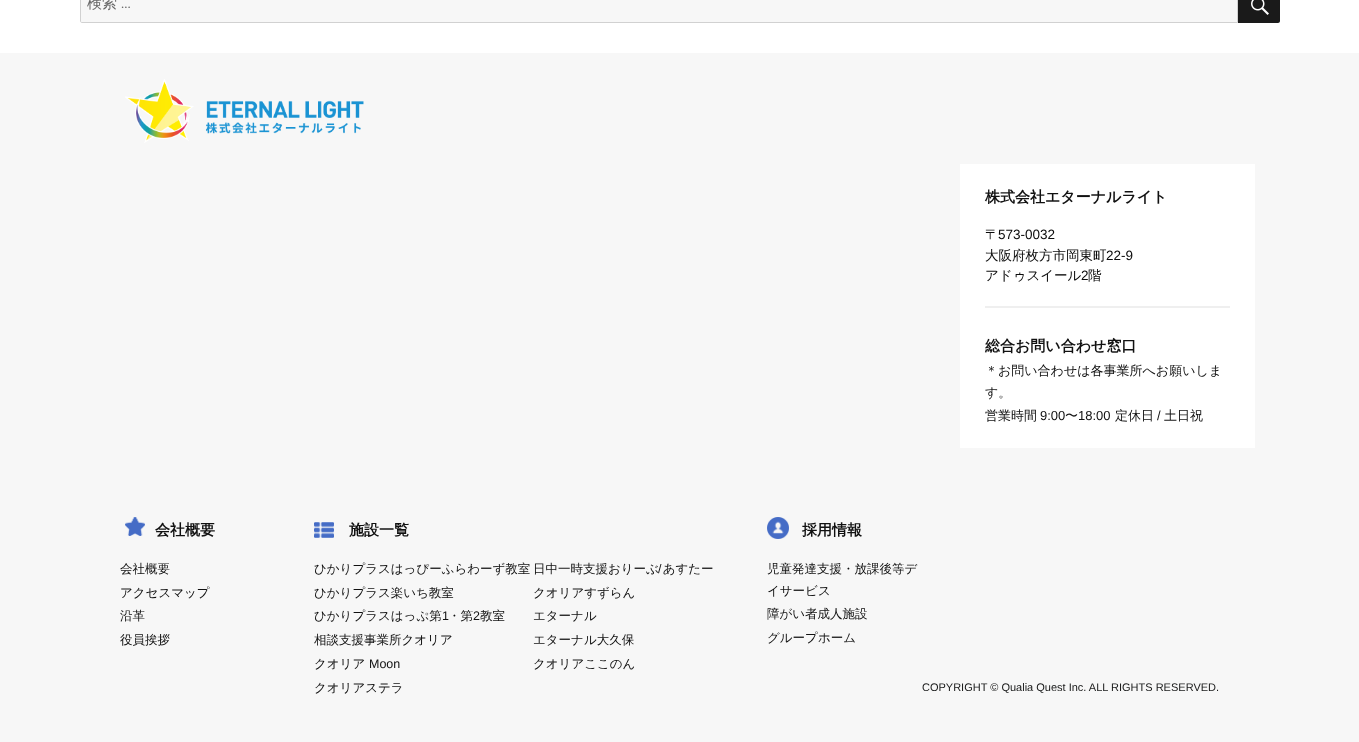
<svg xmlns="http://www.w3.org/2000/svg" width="1359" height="742">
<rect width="100%" height="100%" fill="#fff"/>
<path d="M82-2.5h1155.5v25h-1155.5c-1 0-1.5-.5-1.5-1.5v-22c0-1 .5-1.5 1.5-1.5z" fill="#f7f7f7" stroke="#d1d1d1"/>
<text x="87" y="8" style="font-family:WenQuanYi Zen Hei;font-size:15px;font-weight:500;fill:#686868">検索</text>
<text x="121" y="8" style="font-family:Montserrat;font-size:15px;fill:#686868">…</text>
<path d="M1238-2h40c1 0 2 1 2 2v21c0 1-1 2-2 2h-40z" fill="#1a1a1a"/>
<image x="1251" y="0" width="18" height="15" href="media/1.png"/>
<rect y="53" width="1359" height="689" fill="#f7f7f7"/>
<image x="125" y="79" width="239" height="64" href="media/2.png"/>
<rect x="960" y="164" width="295" height="284" fill="#fff"/>
<text x="985" y="202" style="font-family:WenQuanYi Zen Hei;font-size:15px;font-weight:bold;fill:#111">株式会社エターナルライト</text>
<text x="985" y="239" style="font-family:WenQuanYi Zen Hei;font-size:13.5px;font-weight:500;fill:#0a0a0a">〒</text>
<text x="998" y="239" style="font-family:Liberation Sans;font-size:13.5px;fill:#0a0a0a">573-0032</text>
<text x="985" y="260" style="font-family:WenQuanYi Zen Hei;font-size:13.5px;font-weight:500;fill:#0a0a0a">大阪府枚方市岡東町</text>
<text x="1106" y="260" style="font-family:Liberation Sans;font-size:13.5px;fill:#0a0a0a">22-9</text>
<text x="985" y="280" style="font-family:WenQuanYi Zen Hei;font-size:13.5px;font-weight:500;fill:#0a0a0a">アドゥスイール</text>
<text x="1081" y="280" style="font-family:Liberation Sans;font-size:13.5px;fill:#0a0a0a">2</text>
<text x="1088" y="280" style="font-family:WenQuanYi Zen Hei;font-size:13.5px;font-weight:500;fill:#0a0a0a">階</text>
<rect x="985" y="306" width="245" height="2" fill="#efefef"/>
<text x="985" y="351" style="font-family:WenQuanYi Zen Hei;font-size:15px;font-weight:bold;fill:#111">総合お問い合わせ窓口</text>
<text x="985" y="375" style="font-family:WenQuanYi Zen Hei;font-size:13px;font-weight:500;fill:#111">＊お問い合わせは各事業所へお願いしま</text>
<text x="985" y="397" style="font-family:WenQuanYi Zen Hei;font-size:13px;font-weight:500;fill:#111">す。</text>
<text x="985" y="420" style="font-family:WenQuanYi Zen Hei;font-size:13px;font-weight:500;fill:#111">営業時間</text>
<text x="1040" y="420" style="font-family:Liberation Sans;font-size:13px;fill:#111">9:00</text>
<text x="1065" y="420" style="font-family:WenQuanYi Zen Hei;font-size:13px;font-weight:500;fill:#111">〜</text>
<text x="1078" y="420" style="font-family:Liberation Sans;font-size:13px;fill:#111">18:00</text>
<text x="1115" y="420" style="font-family:WenQuanYi Zen Hei;font-size:13px;font-weight:500;fill:#111">定休日</text>
<text x="1157" y="420" style="font-family:Liberation Sans;font-size:13px;fill:#111">/</text>
<text x="1164" y="420" style="font-family:WenQuanYi Zen Hei;font-size:13px;font-weight:500;fill:#111">土日祝</text>
<image x="125" y="517" width="20" height="19" href="media/3.png"/>
<text x="155" y="535" style="font-family:WenQuanYi Zen Hei;font-size:15px;font-weight:bold;fill:#111">会社概要</text>
<text x="120" y="573" style="font-family:WenQuanYi Zen Hei;font-size:12.5px;font-weight:500;fill:#111">会社概要</text>
<text x="120" y="597" style="font-family:WenQuanYi Zen Hei;font-size:12.5px;font-weight:500;fill:#111">アクセスマップ</text>
<text x="120" y="620" style="font-family:WenQuanYi Zen Hei;font-size:12.5px;font-weight:500;fill:#111">沿革</text>
<text x="120" y="644" style="font-family:WenQuanYi Zen Hei;font-size:12.5px;font-weight:500;fill:#111">役員挨拶</text>
<image x="314" y="522" width="20" height="16" href="media/4.png"/>
<text x="349" y="535" style="font-family:WenQuanYi Zen Hei;font-size:15px;font-weight:bold;fill:#111">施設一覧</text>
<text x="314" y="573" style="font-family:WenQuanYi Zen Hei;font-size:12.5px;font-weight:500;fill:#111">ひかりプラスはっぴーふらわーず教室</text>
<text x="314" y="597" style="font-family:WenQuanYi Zen Hei;font-size:12.5px;font-weight:500;fill:#111">ひかりプラス楽いち教室</text>
<text x="314" y="620" style="font-family:WenQuanYi Zen Hei;font-size:12.5px;font-weight:500;fill:#111">ひかりプラスはっぷ第</text>
<text x="442" y="620" style="font-family:Liberation Sans;font-size:12.5px;fill:#111">1</text>
<text x="448" y="620" style="font-family:WenQuanYi Zen Hei;font-size:12.5px;font-weight:500;fill:#111">・第</text>
<text x="473" y="620" style="font-family:Liberation Sans;font-size:12.5px;fill:#111">2</text>
<text x="480" y="620" style="font-family:WenQuanYi Zen Hei;font-size:12.5px;font-weight:500;fill:#111">教室</text>
<text x="314" y="644" style="font-family:WenQuanYi Zen Hei;font-size:12.5px;font-weight:500;fill:#111">相談支援事業所クオリア</text>
<text x="314" y="668" style="font-family:WenQuanYi Zen Hei;font-size:12.5px;font-weight:500;fill:#111">クオリア</text>
<text x="369" y="668" style="font-family:Liberation Sans;font-size:12.5px;fill:#111">Moon</text>
<text x="314" y="692" style="font-family:WenQuanYi Zen Hei;font-size:12.5px;font-weight:500;fill:#111">クオリアステラ</text>
<text x="533" y="573" style="font-family:WenQuanYi Zen Hei;font-size:12.5px;font-weight:500;fill:#111">日中一時支援おりーぶ あすたー</text>
<text x="658" y="573" style="font-family:Liberation Sans;font-size:12.5px;fill:#111">/</text>
<text x="533" y="597" style="font-family:WenQuanYi Zen Hei;font-size:12.5px;font-weight:500;fill:#111">クオリアすずらん</text>
<text x="533" y="620" style="font-family:WenQuanYi Zen Hei;font-size:12.5px;font-weight:500;fill:#111">エターナル</text>
<text x="533" y="644" style="font-family:WenQuanYi Zen Hei;font-size:12.5px;font-weight:500;fill:#111">エターナル大久保</text>
<text x="533" y="668" style="font-family:WenQuanYi Zen Hei;font-size:12.5px;font-weight:500;fill:#111">クオリアここのん</text>
<image x="767" y="517" width="22" height="22" href="media/5.png"/>
<text x="802" y="535" style="font-family:WenQuanYi Zen Hei;font-size:15px;font-weight:bold;fill:#111">採用情報</text>
<text x="767" y="573" style="font-family:WenQuanYi Zen Hei;font-size:12.5px;font-weight:500;fill:#111">児童発達支援・放課後等デ</text>
<text x="767" y="595" style="font-family:WenQuanYi Zen Hei;font-size:12.5px;font-weight:500;fill:#111">イサービス</text>
<text x="767" y="618" style="font-family:WenQuanYi Zen Hei;font-size:12.5px;font-weight:500;fill:#111">障がい者成人施設</text>
<text x="767" y="642" style="font-family:WenQuanYi Zen Hei;font-size:12.5px;font-weight:500;fill:#111">グループホーム</text>
<text x="922" y="691" style="font-family:Liberation Sans;font-size:11px;fill:#181919">COPYRIGHT © Qualia Quest Inc. ALL RIGHTS RESERVED.</text>
</svg>
